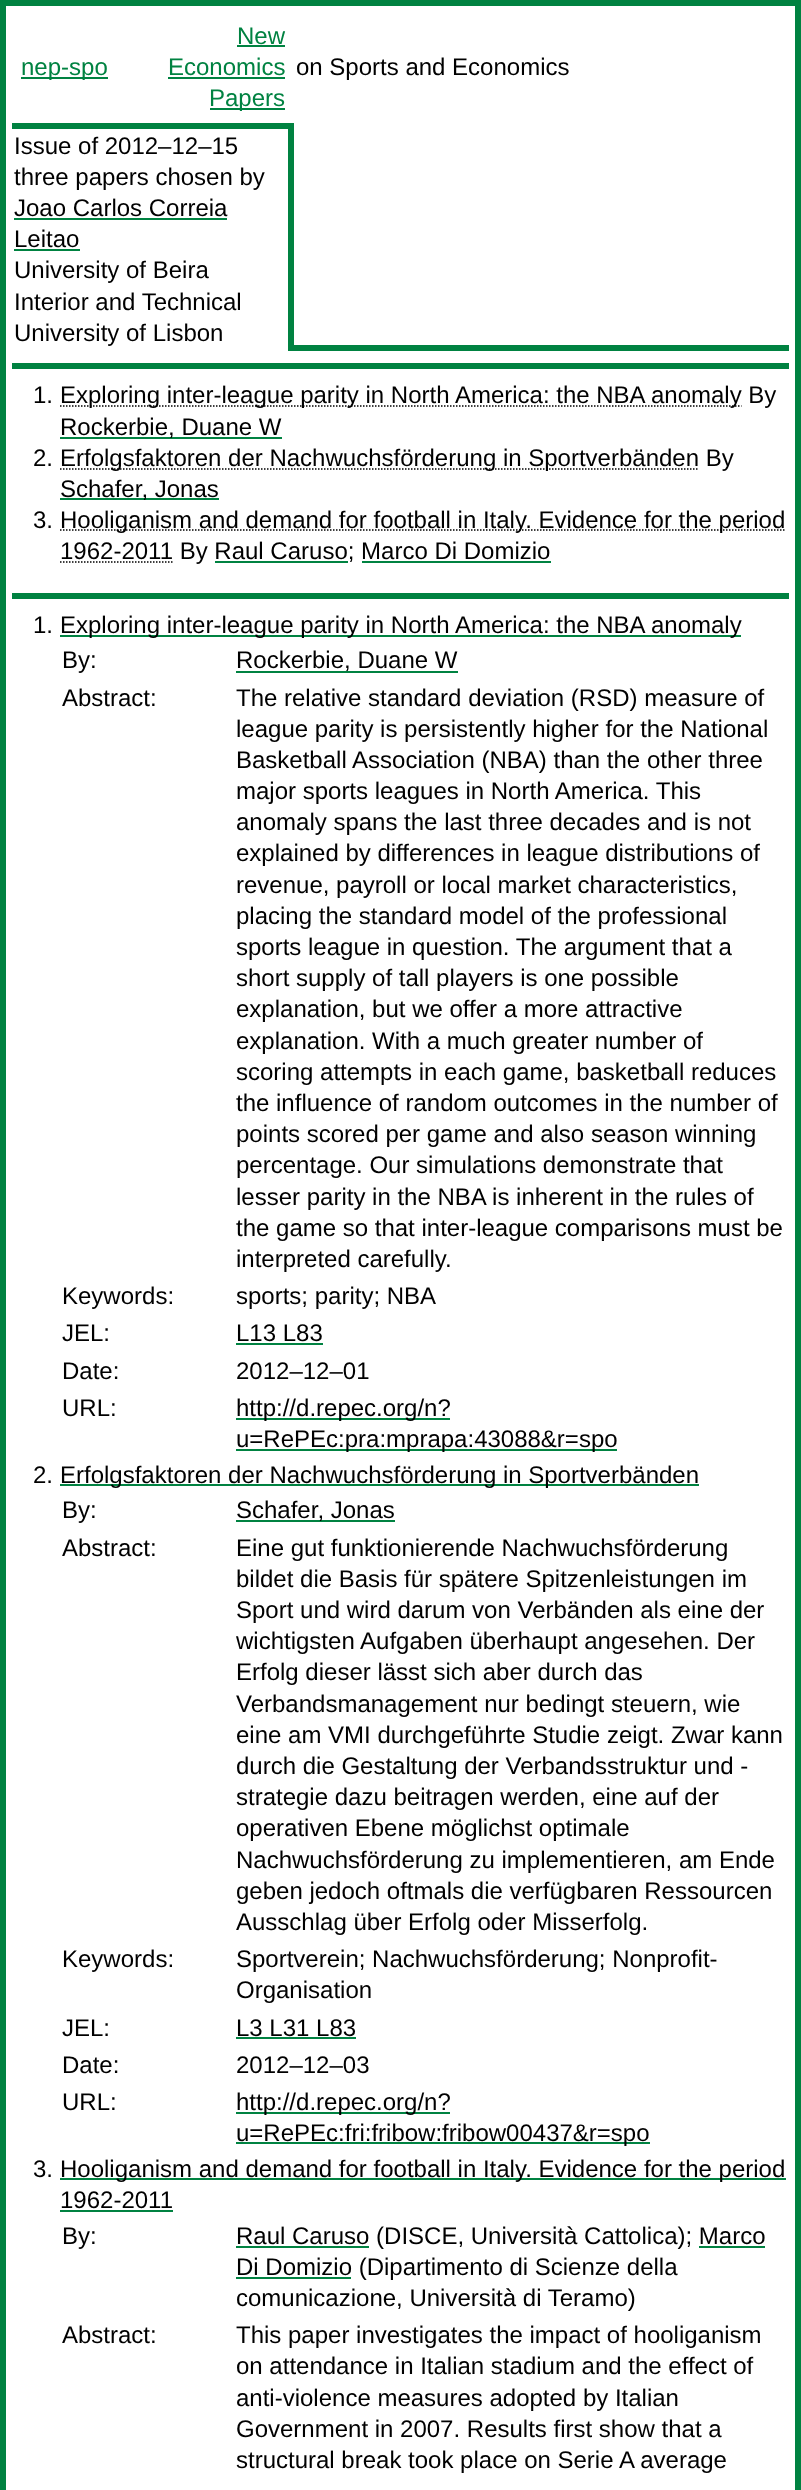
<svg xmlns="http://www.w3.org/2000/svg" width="801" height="2490">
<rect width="100%" height="100%" fill="#fff"/>
<rect x="3" y="3" width="795" height="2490" fill="none" stroke="#008241" stroke-width="6"/>
<rect x="21" y="77" width="87" height="2" fill="#008241"/>
<text x="21" y="75" style="font-family:Liberation Sans;font-size:24px;fill:#008241">nep-spo</text>
<text x="237" y="44" style="font-family:Liberation Sans;font-size:24px;fill:#008241">New</text>
<rect x="237" y="45" width="48" height="2" fill="#008241"/>
<text x="168" y="75" style="font-family:Liberation Sans;font-size:24px;fill:#008241">Economics</text>
<rect x="168" y="77" width="117" height="2" fill="#008241"/>
<rect x="210" y="108" width="75" height="2" fill="#008241"/>
<text x="209" y="106" style="font-family:Liberation Sans;font-size:24px;fill:#008241">Papers</text>
<text x="296" y="75" style="font-family:Liberation Sans;font-size:24px;fill:#000">on Sports and Economics</text>
<rect x="12" y="123" width="279" height="6" fill="#008241"/>
<rect x="288" y="123" width="3" height="228" fill="#008241"/>
<text x="14" y="154" style="font-family:Liberation Sans;font-size:24px;fill:#000">Issue of 2012‒12‒15</text>
<text x="14" y="185" style="font-family:Liberation Sans;font-size:24px;fill:#000">three papers chosen by</text>
<text x="14" y="216" style="font-family:Liberation Sans;font-size:24px;fill:#000">Joao Carlos Correia</text>
<rect x="14" y="218" width="213" height="2" fill="#008241"/>
<text x="14" y="247" style="font-family:Liberation Sans;font-size:24px;fill:#000">Leitao</text>
<rect x="14" y="249" width="66" height="2" fill="#008241"/>
<text x="14" y="278" style="font-family:Liberation Sans;font-size:24px;fill:#000">University of Beira</text>
<text x="14" y="310" style="font-family:Liberation Sans;font-size:24px;fill:#000">Interior and Technical</text>
<text x="14" y="341" style="font-family:Liberation Sans;font-size:24px;fill:#000">University of Lisbon</text>
<rect x="291" y="345" width="498" height="6" fill="#008241"/>
<rect x="291" y="123" width="3" height="228" fill="#008241"/>
<rect x="12" y="363" width="777" height="6" fill="#008241"/>
<text x="33" y="403" style="font-family:Liberation Sans;font-size:24px;fill:#000">1.</text>
<path d="M60 406h681.5" fill="none" stroke="#000" stroke-width="1.5" stroke-dasharray="1.5 1.5"/>
<text x="60" y="403" style="font-family:Liberation Sans;font-size:24px;fill:#000">Exploring inter-league parity in North America: the NBA anomaly By</text>
<rect x="60" y="437" width="222" height="2" fill="#008241"/>
<text x="60" y="435" style="font-family:Liberation Sans;font-size:24px;fill:#000">Rockerbie, Duane W</text>
<text x="33" y="466" style="font-family:Liberation Sans;font-size:24px;fill:#000">2.</text>
<path d="M60 469h639" fill="none" stroke="#000" stroke-width="1.5" stroke-dasharray="1.5 1.5"/>
<text x="60" y="466" style="font-family:Liberation Sans;font-size:24px;fill:#000">Erfolgsfaktoren der Nachwuchsförderung in Sportverbänden By</text>
<rect x="60" y="498" width="159" height="2" fill="#008241"/>
<text x="60" y="497" style="font-family:Liberation Sans;font-size:24px;fill:#000">Schafer, Jonas</text>
<text x="33" y="528" style="font-family:Liberation Sans;font-size:24px;fill:#000">3.</text>
<path d="M60 530h725.5" fill="none" stroke="#000" stroke-width="1.5" stroke-dasharray="1.5 1.5"/>
<text x="60" y="528" style="font-family:Liberation Sans;font-size:24px;fill:#000">Hooliganism and demand for football in Italy. Evidence for the period</text>
<path d="M60 562h113" fill="none" stroke="#000" stroke-width="1.5" stroke-dasharray="1.5 1.5"/>
<text x="60" y="559" style="font-family:Liberation Sans;font-size:24px;fill:#000">1962-2011 By Raul Caruso; Marco Di Domizio</text>
<rect x="215" y="561" width="133" height="2" fill="#008241"/>
<rect x="362" y="561" width="189" height="2" fill="#008241"/>
<rect x="12" y="593" width="777" height="6" fill="#008241"/>
<text x="33" y="633" style="font-family:Liberation Sans;font-size:24px;fill:#000">1.</text>
<rect x="60" y="635" width="681" height="2" fill="#008241"/>
<text x="60" y="633" style="font-family:Liberation Sans;font-size:24px;fill:#000">Exploring inter-league parity in North America: the NBA anomaly</text>
<text x="62" y="668" style="font-family:Liberation Sans;font-size:24px;fill:#000">By:</text>
<rect x="236" y="671" width="222" height="2" fill="#008241"/>
<text x="236" y="668" style="font-family:Liberation Sans;font-size:24px;fill:#000">Rockerbie, Duane W</text>
<text x="62" y="706" style="font-family:Liberation Sans;font-size:24px;fill:#000">Abstract:</text>
<text x="236" y="706" style="font-family:Liberation Sans;font-size:24px;fill:#000">The relative standard deviation (RSD) measure of</text>
<text x="236" y="737" style="font-family:Liberation Sans;font-size:24px;fill:#000">league parity is persistently higher for the National</text>
<text x="236" y="768" style="font-family:Liberation Sans;font-size:24px;fill:#000">Basketball Association (NBA) than the other three</text>
<text x="236" y="799" style="font-family:Liberation Sans;font-size:24px;fill:#000">major sports leagues in North America. This</text>
<text x="236" y="830" style="font-family:Liberation Sans;font-size:24px;fill:#000">anomaly spans the last three decades and is not</text>
<text x="236" y="861" style="font-family:Liberation Sans;font-size:24px;fill:#000">explained by differences in league distributions of</text>
<text x="236" y="893" style="font-family:Liberation Sans;font-size:24px;fill:#000">revenue, payroll or local market characteristics,</text>
<text x="236" y="924" style="font-family:Liberation Sans;font-size:24px;fill:#000">placing the standard model of the professional</text>
<text x="236" y="955" style="font-family:Liberation Sans;font-size:24px;fill:#000">sports league in question. The argument that a</text>
<text x="236" y="986" style="font-family:Liberation Sans;font-size:24px;fill:#000">short supply of tall players is one possible</text>
<text x="236" y="1017" style="font-family:Liberation Sans;font-size:24px;fill:#000">explanation, but we offer a more attractive</text>
<text x="236" y="1049" style="font-family:Liberation Sans;font-size:24px;fill:#000">explanation. With a much greater number of</text>
<text x="236" y="1080" style="font-family:Liberation Sans;font-size:24px;fill:#000">scoring attempts in each game, basketball reduces</text>
<text x="236" y="1111" style="font-family:Liberation Sans;font-size:24px;fill:#000">the influence of random outcomes in the number of</text>
<text x="236" y="1142" style="font-family:Liberation Sans;font-size:24px;fill:#000">points scored per game and also season winning</text>
<text x="236" y="1173" style="font-family:Liberation Sans;font-size:24px;fill:#000">percentage. Our simulations demonstrate that</text>
<text x="236" y="1205" style="font-family:Liberation Sans;font-size:24px;fill:#000">lesser parity in the NBA is inherent in the rules of</text>
<text x="236" y="1236" style="font-family:Liberation Sans;font-size:24px;fill:#000">the game so that inter-league comparisons must be</text>
<text x="236" y="1267" style="font-family:Liberation Sans;font-size:24px;fill:#000">interpreted carefully.</text>
<text x="62" y="1304" style="font-family:Liberation Sans;font-size:24px;fill:#000">Keywords:</text>
<text x="236" y="1304" style="font-family:Liberation Sans;font-size:24px;fill:#000">sports; parity; NBA</text>
<text x="62" y="1341" style="font-family:Liberation Sans;font-size:24px;fill:#000">JEL:</text>
<text x="236" y="1341" style="font-family:Liberation Sans;font-size:24px;fill:#000">L13 L83</text>
<rect x="236" y="1343" width="87" height="2" fill="#008241"/>
<text x="62" y="1379" style="font-family:Liberation Sans;font-size:24px;fill:#000">Date:</text>
<text x="236" y="1379" style="font-family:Liberation Sans;font-size:24px;fill:#000">2012–12–01</text>
<text x="62" y="1416" style="font-family:Liberation Sans;font-size:24px;fill:#000">URL:</text>
<rect x="236" y="1418" width="214" height="2" fill="#008241"/>
<text x="236" y="1416" style="font-family:Liberation Sans;font-size:24px;fill:#000">http://d.repec.org/n?</text>
<rect x="236" y="1449" width="381" height="2" fill="#008241"/>
<text x="236" y="1447" style="font-family:Liberation Sans;font-size:24px;fill:#000">u=RePEc:pra:mprapa:43088&amp;r=spo</text>
<text x="33" y="1483" style="font-family:Liberation Sans;font-size:24px;fill:#000">2.</text>
<rect x="60" y="1484" width="639" height="2" fill="#008241"/>
<text x="60" y="1483" style="font-family:Liberation Sans;font-size:24px;fill:#000">Erfolgsfaktoren der Nachwuchsförderung in Sportverbänden</text>
<text x="62" y="1518" style="font-family:Liberation Sans;font-size:24px;fill:#000">By:</text>
<rect x="236" y="1520" width="159" height="2" fill="#008241"/>
<text x="236" y="1518" style="font-family:Liberation Sans;font-size:24px;fill:#000">Schafer, Jonas</text>
<text x="62" y="1556" style="font-family:Liberation Sans;font-size:24px;fill:#000">Abstract:</text>
<text x="236" y="1556" style="font-family:Liberation Sans;font-size:24px;fill:#000">Eine gut funktionierende Nachwuchsförderung</text>
<text x="236" y="1587" style="font-family:Liberation Sans;font-size:24px;fill:#000">bildet die Basis für spätere Spitzenleistungen im</text>
<text x="236" y="1618" style="font-family:Liberation Sans;font-size:24px;fill:#000">Sport und wird darum von Verbänden als eine der</text>
<text x="236" y="1649" style="font-family:Liberation Sans;font-size:24px;fill:#000">wichtigsten Aufgaben überhaupt angesehen. Der</text>
<text x="236" y="1680" style="font-family:Liberation Sans;font-size:24px;fill:#000">Erfolg dieser lässt sich aber durch das</text>
<text x="236" y="1712" style="font-family:Liberation Sans;font-size:24px;fill:#000">Verbandsmanagement nur bedingt steuern, wie</text>
<text x="236" y="1743" style="font-family:Liberation Sans;font-size:24px;fill:#000">eine am VMI durchgeführte Studie zeigt. Zwar kann</text>
<text x="236" y="1774" style="font-family:Liberation Sans;font-size:24px;fill:#000">durch die Gestaltung der Verbandsstruktur und -</text>
<text x="236" y="1805" style="font-family:Liberation Sans;font-size:24px;fill:#000">strategie dazu beitragen werden, eine auf der</text>
<text x="236" y="1836" style="font-family:Liberation Sans;font-size:24px;fill:#000">operativen Ebene möglichst optimale</text>
<text x="236" y="1868" style="font-family:Liberation Sans;font-size:24px;fill:#000">Nachwuchsförderung zu implementieren, am Ende</text>
<text x="236" y="1899" style="font-family:Liberation Sans;font-size:24px;fill:#000">geben jedoch oftmals die verfügbaren Ressourcen</text>
<text x="236" y="1930" style="font-family:Liberation Sans;font-size:24px;fill:#000">Ausschlag über Erfolg oder Misserfolg.</text>
<text x="62" y="1967" style="font-family:Liberation Sans;font-size:24px;fill:#000">Keywords:</text>
<text x="236" y="1967" style="font-family:Liberation Sans;font-size:24px;fill:#000">Sportverein; Nachwuchsförderung; Nonprofit-</text>
<text x="236" y="1998" style="font-family:Liberation Sans;font-size:24px;fill:#000">Organisation</text>
<text x="62" y="2036" style="font-family:Liberation Sans;font-size:24px;fill:#000">JEL:</text>
<text x="236" y="2036" style="font-family:Liberation Sans;font-size:24px;fill:#000">L3 L31 L83</text>
<rect x="236" y="2037" width="120" height="2" fill="#008241"/>
<text x="62" y="2073" style="font-family:Liberation Sans;font-size:24px;fill:#000">Date:</text>
<text x="236" y="2073" style="font-family:Liberation Sans;font-size:24px;fill:#000">2012–12–03</text>
<text x="62" y="2110" style="font-family:Liberation Sans;font-size:24px;fill:#000">URL:</text>
<rect x="236" y="2112" width="214" height="2" fill="#008241"/>
<text x="236" y="2110" style="font-family:Liberation Sans;font-size:24px;fill:#000">http://d.repec.org/n?</text>
<rect x="236" y="2142" width="414" height="2" fill="#008241"/>
<text x="236" y="2141" style="font-family:Liberation Sans;font-size:24px;fill:#000">u=RePEc:fri:fribow:fribow00437&amp;r=spo</text>
<text x="33" y="2177" style="font-family:Liberation Sans;font-size:24px;fill:#000">3.</text>
<rect x="60" y="2178" width="726" height="2" fill="#008241"/>
<text x="60" y="2177" style="font-family:Liberation Sans;font-size:24px;fill:#000">Hooliganism and demand for football in Italy. Evidence for the period</text>
<text x="60" y="2208" style="font-family:Liberation Sans;font-size:24px;fill:#000">1962-2011</text>
<rect x="60" y="2210" width="113" height="2" fill="#008241"/>
<text x="62" y="2244" style="font-family:Liberation Sans;font-size:24px;fill:#000">By:</text>
<rect x="236" y="2246" width="133" height="2" fill="#008241"/>
<text x="236" y="2244" style="font-family:Liberation Sans;font-size:24px;fill:#000">Raul Caruso (DISCE, Università Cattolica); Marco</text>
<rect x="236" y="2277" width="115" height="2" fill="#008241"/>
<text x="236" y="2275" style="font-family:Liberation Sans;font-size:24px;fill:#000">Di Domizio (Dipartimento di Scienze della</text>
<rect x="699" y="2246" width="66" height="2" fill="#008241"/>
<text x="236" y="2306" style="font-family:Liberation Sans;font-size:24px;fill:#000">comunicazione, Università di Teramo)</text>
<text x="62" y="2343" style="font-family:Liberation Sans;font-size:24px;fill:#000">Abstract:</text>
<text x="236" y="2343" style="font-family:Liberation Sans;font-size:24px;fill:#000">This paper investigates the impact of hooliganism</text>
<text x="236" y="2374" style="font-family:Liberation Sans;font-size:24px;fill:#000">on attendance in Italian stadium and the effect of</text>
<text x="236" y="2406" style="font-family:Liberation Sans;font-size:24px;fill:#000">anti-violence measures adopted by Italian</text>
<text x="236" y="2437" style="font-family:Liberation Sans;font-size:24px;fill:#000">Government in 2007. Results first show that a</text>
<text x="236" y="2468" style="font-family:Liberation Sans;font-size:24px;fill:#000">structural break took place on Serie A average</text>
</svg>
